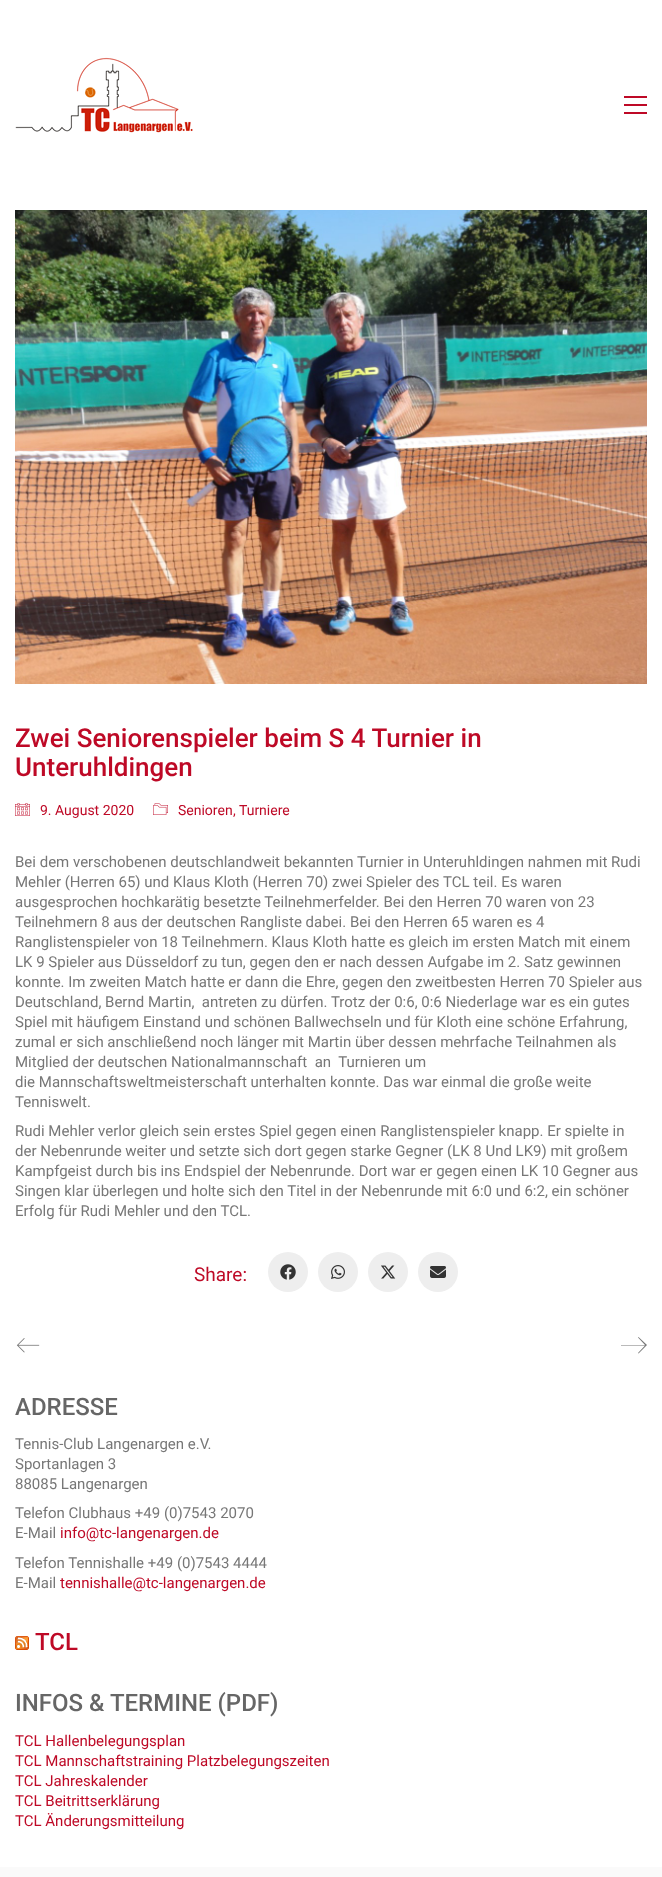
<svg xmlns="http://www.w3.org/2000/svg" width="662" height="1877">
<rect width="100%" height="100%" fill="#fafafa"/>
<rect width="662" height="1867" fill="#fff"/>
<image x="15" y="57" width="178" height="76" href="media/1.png"/>
<rect x="624" y="96" width="23" height="2" fill="#be0926"/>
<rect x="624" y="104" width="23" height="2" fill="#be0926"/>
<rect x="624" y="112" width="23" height="2" fill="#be0926"/>
<image x="15" y="210" width="632" height="474" href="media/2.png"/>
<text x="15" y="747" style="font-family:Roboto;font-size:26px;font-weight:500;fill:#be0926">Zwei Seniorenspieler beim S 4 Turnier in</text>
<text x="15" y="776" style="font-family:Roboto;font-size:26px;font-weight:500;fill:#be0926">Unteruhldingen</text>
<image x="15" y="803" width="15" height="13" href="media/3.png"/>
<text x="40" y="815" style="font-family:Roboto;font-size:14px;fill:#be0926">9. August 2020</text>
<image x="153" y="803" width="15" height="12" href="media/4.png"/>
<text x="178" y="815" style="font-family:Roboto;font-size:14px;fill:#be0926">Senioren</text>
<text x="233" y="815" style="font-family:Roboto;font-size:14px;fill:#be0926">, Turniere</text>
<text x="15" y="867" style="font-family:Roboto;font-size:15px;fill:#777">Bei dem verschobenen deutschlandweit bekannten Turnier in Unteruhldingen nahmen mit Rudi</text>
<text x="15" y="887" style="font-family:Roboto;font-size:15px;fill:#777">Mehler (Herren 65) und Klaus Kloth (Herren 70) zwei Spieler des TCL teil. Es waren</text>
<text x="15" y="907" style="font-family:Roboto;font-size:15px;fill:#777">ausgesprochen hochkarätig besetzte Teilnehmerfelder. Bei den Herren 70 waren von 23</text>
<text x="15" y="927" style="font-family:Roboto;font-size:15px;fill:#777">Teilnehmern 8 aus der deutschen Rangliste dabei. Bei den Herren 65 waren es 4</text>
<text x="15" y="947" style="font-family:Roboto;font-size:15px;fill:#777">Ranglistenspieler von 18 Teilnehmern. Klaus Kloth hatte es gleich im ersten Match mit einem</text>
<text x="15" y="967" style="font-family:Roboto;font-size:15px;fill:#777">LK 9 Spieler aus Düsseldorf zu tun, gegen den er nach dessen Aufgabe im 2. Satz gewinnen</text>
<text x="15" y="987" style="font-family:Roboto;font-size:15px;fill:#777">konnte. Im zweiten Match hatte er dann die Ehre, gegen den zweitbesten Herren 70 Spieler aus</text>
<text x="15" y="1007" style="font-family:Roboto;font-size:15px;fill:#777" xml:space="preserve">Deutschland, Bernd Martin,  antreten zu dürfen. Trotz der 0:6, 0:6 Niederlage war es ein gutes</text>
<text x="15" y="1027" style="font-family:Roboto;font-size:15px;fill:#777">Spiel mit häufigem Einstand und schönen Ballwechseln und für Kloth eine schöne Erfahrung,</text>
<text x="15" y="1047" style="font-family:Roboto;font-size:15px;fill:#777">zumal er sich anschließend noch länger mit Martin über dessen mehrfache Teilnahmen als</text>
<text x="15" y="1067" style="font-family:Roboto;font-size:15px;fill:#777" xml:space="preserve">Mitglied der deutschen Nationalmannschaft  an  Turnieren um</text>
<text x="15" y="1087" style="font-family:Roboto;font-size:15px;fill:#777">die Mannschaftsweltmeisterschaft unterhalten konnte. Das war einmal die große weite</text>
<text x="15" y="1107" style="font-family:Roboto;font-size:15px;fill:#777">Tenniswelt.</text>
<text x="15" y="1136" style="font-family:Roboto;font-size:15px;fill:#777">Rudi Mehler verlor gleich sein erstes Spiel gegen einen Ranglistenspieler knapp. Er spielte in</text>
<text x="15" y="1156" style="font-family:Roboto;font-size:15px;fill:#777">der Nebenrunde weiter und setzte sich dort gegen starke Gegner (LK 8 Und LK9) mit großem</text>
<text x="15" y="1176" style="font-family:Roboto;font-size:15px;fill:#777">Kampfgeist durch bis ins Endspiel der Nebenrunde. Dort war er gegen einen LK 10 Gegner aus</text>
<text x="15" y="1196" style="font-family:Roboto;font-size:15px;fill:#777">Singen klar überlegen und holte sich den Titel in der Nebenrunde mit 6:0 und 6:2, ein schöner</text>
<text x="15" y="1216" style="font-family:Roboto;font-size:15px;fill:#777">Erfolg für Rudi Mehler und den TCL.</text>
<text x="194" y="1281" style="font-family:Roboto;font-size:19px;fill:#be0926">Share:</text>
<circle cx="288" cy="1272" r="20" fill="#eee"/>
<image x="280" y="1264" width="16" height="16" href="media/5.png"/>
<circle cx="338" cy="1272" r="20" fill="#eee"/>
<image x="331" y="1265" width="14" height="14" href="media/6.png"/>
<circle cx="388" cy="1272" r="20" fill="#eee"/>
<image x="381" y="1265" width="15" height="14" href="media/7.png"/>
<circle cx="438" cy="1272" r="20" fill="#eee"/>
<image x="430" y="1266" width="16" height="12" href="media/8.png"/>
<image x="16" y="1338" width="24" height="15" href="media/9.png"/>
<path d="M638.5 1337l-.5 .5l7 7.5h-24v.5h24l-7 7.5l.5 .5l8.5-8.5z" fill="#777"/>
<text x="15" y="1415" style="font-family:Roboto;font-size:24px;font-weight:500;fill:#666">ADRESSE</text>
<text x="15" y="1449" style="font-family:Roboto;font-size:15px;fill:#777">Tennis-Club Langenargen e.V.</text>
<text x="15" y="1469" style="font-family:Roboto;font-size:15px;fill:#777">Sportanlagen 3</text>
<text x="15" y="1489" style="font-family:Roboto;font-size:15px;fill:#777">88085 Langenargen</text>
<text x="15" y="1518" style="font-family:Roboto;font-size:15px;fill:#777">Telefon Clubhaus +49 (0)7543 2070</text>
<text x="15" y="1538" style="font-family:Roboto;font-size:15px;fill:#777">E-Mail</text>
<text x="60" y="1538" style="font-family:Roboto;font-size:15px;fill:#be0926">info@tc-langenargen.de</text>
<text x="15" y="1568" style="font-family:Roboto;font-size:15px;fill:#777">Telefon Tennishalle +49 (0)7543 4444</text>
<text x="15" y="1588" style="font-family:Roboto;font-size:15px;fill:#777">E-Mail</text>
<text x="60" y="1588" style="font-family:Roboto;font-size:15px;fill:#be0926">tennishalle@tc-langenargen.de</text>
<image x="15" y="1636" width="14" height="14" href="media/10.png"/>
<text x="35" y="1650" style="font-family:Roboto;font-size:24px;font-weight:500;fill:#be0926">TCL</text>
<text x="15" y="1711" style="font-family:Roboto;font-size:24px;font-weight:500;fill:#666">INFOS &amp; TERMINE (PDF)</text>
<text x="15" y="1746" style="font-family:Roboto;font-size:15px;fill:#be0926">TCL Hallenbelegungsplan</text>
<text x="15" y="1766" style="font-family:Roboto;font-size:15px;fill:#be0926">TCL Mannschaftstraining Platzbelegungszeiten</text>
<text x="15" y="1786" style="font-family:Roboto;font-size:15px;fill:#be0926">TCL Jahreskalender</text>
<text x="15" y="1806" style="font-family:Roboto;font-size:15px;fill:#be0926">TCL Beitrittserklärung</text>
<text x="15" y="1826" style="font-family:Roboto;font-size:15px;fill:#be0926">TCL Änderungsmitteilung</text>
</svg>
